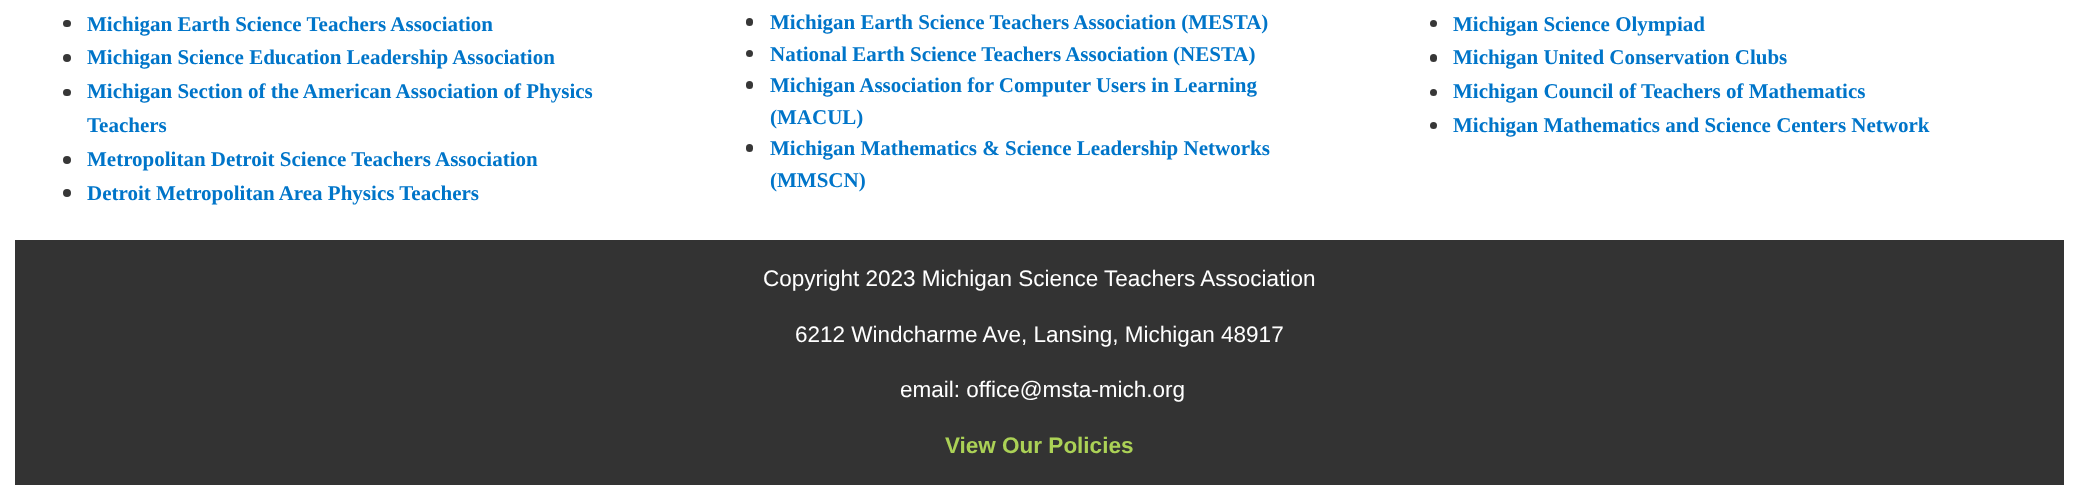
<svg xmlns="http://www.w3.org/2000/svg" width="2078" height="492">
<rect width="100%" height="100%" fill="#fff"/>
<rect x="63" y="20" width="8" height="7" rx="3.5" fill="#373737"/>
<text x="87" y="31" style="font-family:Liberation Serif;font-size:21px;font-weight:bold;fill:#0075c9">Michigan Earth Science Teachers Association</text>
<circle cx="67" cy="58" r="4" fill="#373737"/>
<text x="87" y="64" style="font-family:Liberation Serif;font-size:21px;font-weight:bold;fill:#0075c9">Michigan Science Education Leadership Association</text>
<rect x="63" y="89" width="8" height="7" rx="3.5" fill="#373737"/>
<text x="87" y="98" style="font-family:Liberation Serif;font-size:21px;font-weight:bold;fill:#0075c9">Michigan Section of the American Association of Physics</text>
<text x="87" y="132" style="font-family:Liberation Serif;font-size:21px;font-weight:bold;fill:#0075c9">Teachers</text>
<circle cx="67" cy="160" r="4" fill="#373737"/>
<text x="87" y="166" style="font-family:Liberation Serif;font-size:21px;font-weight:bold;fill:#0075c9">Metropolitan Detroit Science Teachers Association</text>
<circle cx="67" cy="193" r="4" fill="#373737"/>
<text x="87" y="200" style="font-family:Liberation Serif;font-size:21px;font-weight:bold;fill:#0075c9">Detroit Metropolitan Area Physics Teachers</text>
<rect x="746" y="18" width="7" height="8" rx="3.5" fill="#373737"/>
<text x="770" y="29" style="font-family:Liberation Serif;font-size:21px;font-weight:bold;fill:#0075c9">Michigan Earth Science Teachers Association (MESTA)</text>
<circle cx="749.5" cy="53.5" r="3.5" fill="#373737"/>
<text x="770" y="61" style="font-family:Liberation Serif;font-size:21px;font-weight:bold;fill:#0075c9">National Earth Science Teachers Association (NESTA)</text>
<rect x="746" y="81" width="7" height="8" rx="3.5" fill="#373737"/>
<text x="770" y="92" style="font-family:Liberation Serif;font-size:21px;font-weight:bold;fill:#0075c9">Michigan Association for Computer Users in Learning</text>
<text x="770" y="124" style="font-family:Liberation Serif;font-size:21px;font-weight:bold;fill:#0075c9">(MACUL)</text>
<rect x="746" y="144" width="7" height="8" rx="3.5" fill="#373737"/>
<text x="770" y="155" style="font-family:Liberation Serif;font-size:21px;font-weight:bold;fill:#0075c9">Michigan Mathematics &amp; Science Leadership Networks</text>
<text x="770" y="187" style="font-family:Liberation Serif;font-size:21px;font-weight:bold;fill:#0075c9">(MMSCN)</text>
<circle cx="1433.5" cy="23.5" r="3.5" fill="#373737"/>
<text x="1453" y="31" style="font-family:Liberation Serif;font-size:21px;font-weight:bold;fill:#0075c9">Michigan Science Olympiad</text>
<rect x="1430" y="54" width="7" height="8" rx="3.5" fill="#373737"/>
<text x="1453" y="64" style="font-family:Liberation Serif;font-size:21px;font-weight:bold;fill:#0075c9">Michigan United Conservation Clubs</text>
<circle cx="1433.5" cy="92.5" r="3.5" fill="#373737"/>
<text x="1453" y="98" style="font-family:Liberation Serif;font-size:21px;font-weight:bold;fill:#0075c9">Michigan Council of Teachers of Mathematics</text>
<circle cx="1433.5" cy="125.5" r="3.5" fill="#373737"/>
<text x="1453" y="132" style="font-family:Liberation Serif;font-size:21px;font-weight:bold;fill:#0075c9">Michigan Mathematics and Science Centers Network</text>
<rect x="15" y="240" width="2049" height="245" fill="#333"/>
<text x="763" y="286" style="font-family:Liberation Sans;font-size:22.5px;fill:#fff">Copyright 2023 Michigan Science Teachers Association</text>
<text x="795" y="342" style="font-family:Liberation Sans;font-size:22.5px;fill:#fff">6212 Windcharme Ave, Lansing, Michigan 48917</text>
<text x="900" y="397" style="font-family:Liberation Sans;font-size:22.5px;fill:#fff">email: office@msta-mich.org</text>
<text x="945" y="453" style="font-family:Liberation Sans;font-size:22.5px;font-weight:bold;fill:#abd156">View Our Policies</text>
</svg>
